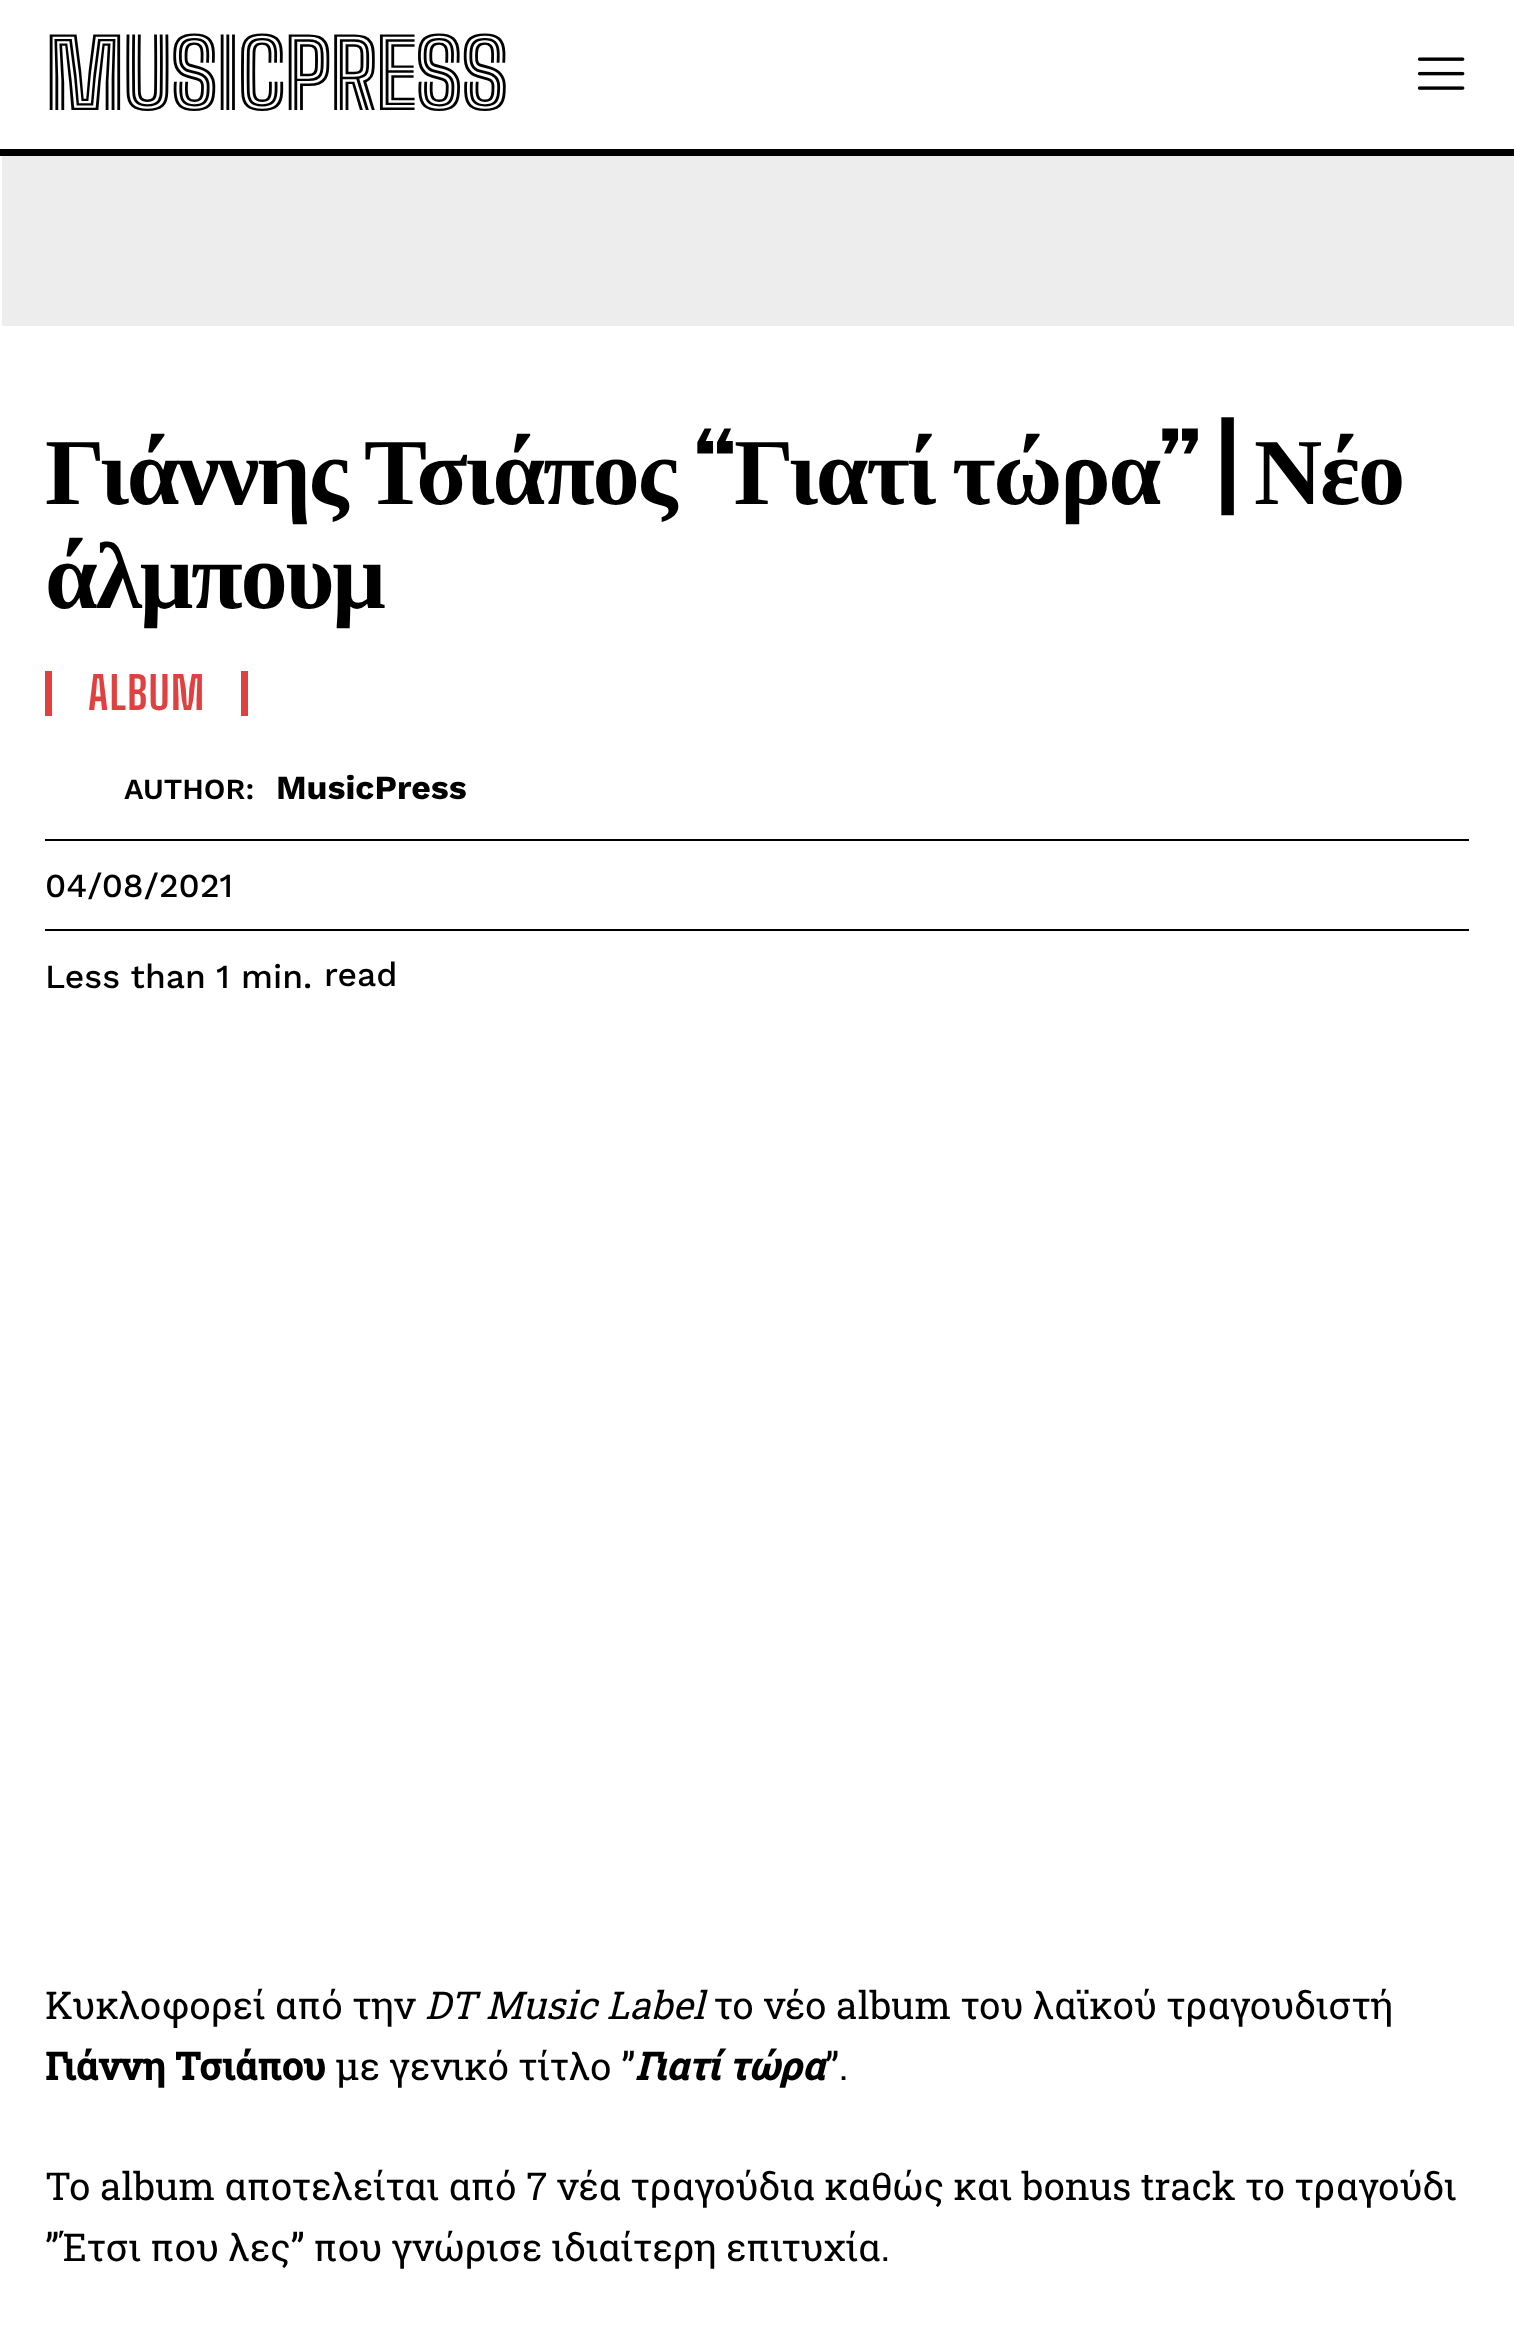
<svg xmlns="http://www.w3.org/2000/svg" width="1514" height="2345">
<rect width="100%" height="100%" fill="#fff"/>
<rect y="149" width="1514" height="7" fill="#000"/>
<text x="45" y="110" style="font-family:Big Shoulders Inline Text;font-size:94.5px;font-weight:900;letter-spacing:-2.25px;fill:#000">MUSICPRESS</text>
<image x="1417" y="57" width="48" height="33" href="media/1.png"/>
<rect x="2" y="156" width="1512" height="170" fill="#ededed"/>
<text x="45" y="504" style="font-family:Liberation Serif;font-size:94.5px;font-weight:bold;letter-spacing:-2.25px;fill:#000">Γιάννης</text>
<text x="364" y="504" style="font-family:Liberation Serif;font-size:94.5px;font-weight:bold;letter-spacing:-2.25px;fill:#000">Τσιάπος</text>
<text x="694" y="504" style="font-family:Big Shoulders Text;font-size:94.5px;font-weight:800;letter-spacing:-2.25px;fill:#000">“</text>
<text x="734" y="504" style="font-family:Liberation Serif;font-size:94.5px;font-weight:bold;letter-spacing:-2.25px;fill:#000">Γιατί</text>
<text x="952" y="504" style="font-family:Liberation Serif;font-size:94.5px;font-weight:bold;letter-spacing:-2.25px;fill:#000">τώρα</text>
<text x="1159" y="504" style="font-family:Big Shoulders Text;font-size:94.5px;font-weight:800;letter-spacing:-2.25px;fill:#000">” |</text>
<text x="1254" y="504" style="font-family:Liberation Serif;font-size:94.5px;font-weight:bold;letter-spacing:-2.25px;fill:#000">Νέο</text>
<text x="45" y="608" style="font-family:Liberation Serif;font-size:94.5px;font-weight:bold;letter-spacing:-2.25px;fill:#000">άλμπουμ</text>
<rect x="241" y="671" width="7" height="45" fill="#e04040"/>
<rect x="45" y="671" width="7" height="45" fill="#e04040"/>
<text x="88" y="710" style="font-family:Big Shoulders Text;font-size:45px;font-weight:bold;letter-spacing:1px;fill:#e04040">ALBUM</text>
<text x="124" y="799" style="font-family:Work Sans;font-size:29.25px;font-weight:600;fill:#000">AUTHOR:</text>
<text x="276" y="799" style="font-family:Work Sans;font-size:33.75px;font-weight:bold;fill:#000">MusicPress</text>
<rect x="45" y="839" width="1424" height="2" fill="#000"/>
<rect x="45" y="929" width="1424" height="2" fill="#000"/>
<text x="45" y="897" style="font-family:Work Sans;font-size:33.75px;font-weight:500;fill:#000">04/08/2021</text>
<text x="45" y="988" style="font-family:Work Sans;font-size:33.75px;font-weight:500;fill:#000">Less than 1 min.</text>
<text x="324" y="986" style="font-family:Work Sans;font-size:33.75px;font-weight:500;fill:#000">read</text>
<text x="45" y="2019" style="font-family:Roboto Slab;font-size:38.25px;fill:#000">Κυκλοφορεί από την</text>
<text x="425" y="2019" style="font-family:Roboto Slab;font-size:38.25px;font-style:italic;fill:#000">DT Music Label</text>
<text x="714" y="2019" style="font-family:Roboto Slab;font-size:38.25px;fill:#000">το νέο album του λαϊκού τραγουδιστή</text>
<text x="45" y="2080" style="font-family:Roboto Slab;font-size:38.25px;font-weight:bold;fill:#000">Γιάννη Τσιάπου</text>
<text x="335" y="2080" style="font-family:Roboto Slab;font-size:38.25px;fill:#000">με γενικό τίτλο ”</text>
<text x="635" y="2080" style="font-family:Roboto Slab;font-size:38.25px;font-weight:bold;font-style:italic;fill:#000">Γιατί τώρα</text>
<text x="825" y="2080" style="font-family:Roboto Slab;font-size:38.25px;fill:#000">”.</text>
<text x="45" y="2200" style="font-family:Roboto Slab;font-size:38.25px;fill:#000">Το album αποτελείται από 7 νέα τραγούδια καθώς και bonus track το τραγούδι</text>
<text x="45" y="2261" style="font-family:Roboto Slab;font-size:38.25px;fill:#000">”Έτσι που λες” που γνώρισε ιδιαίτερη επιτυχία.</text>
</svg>
